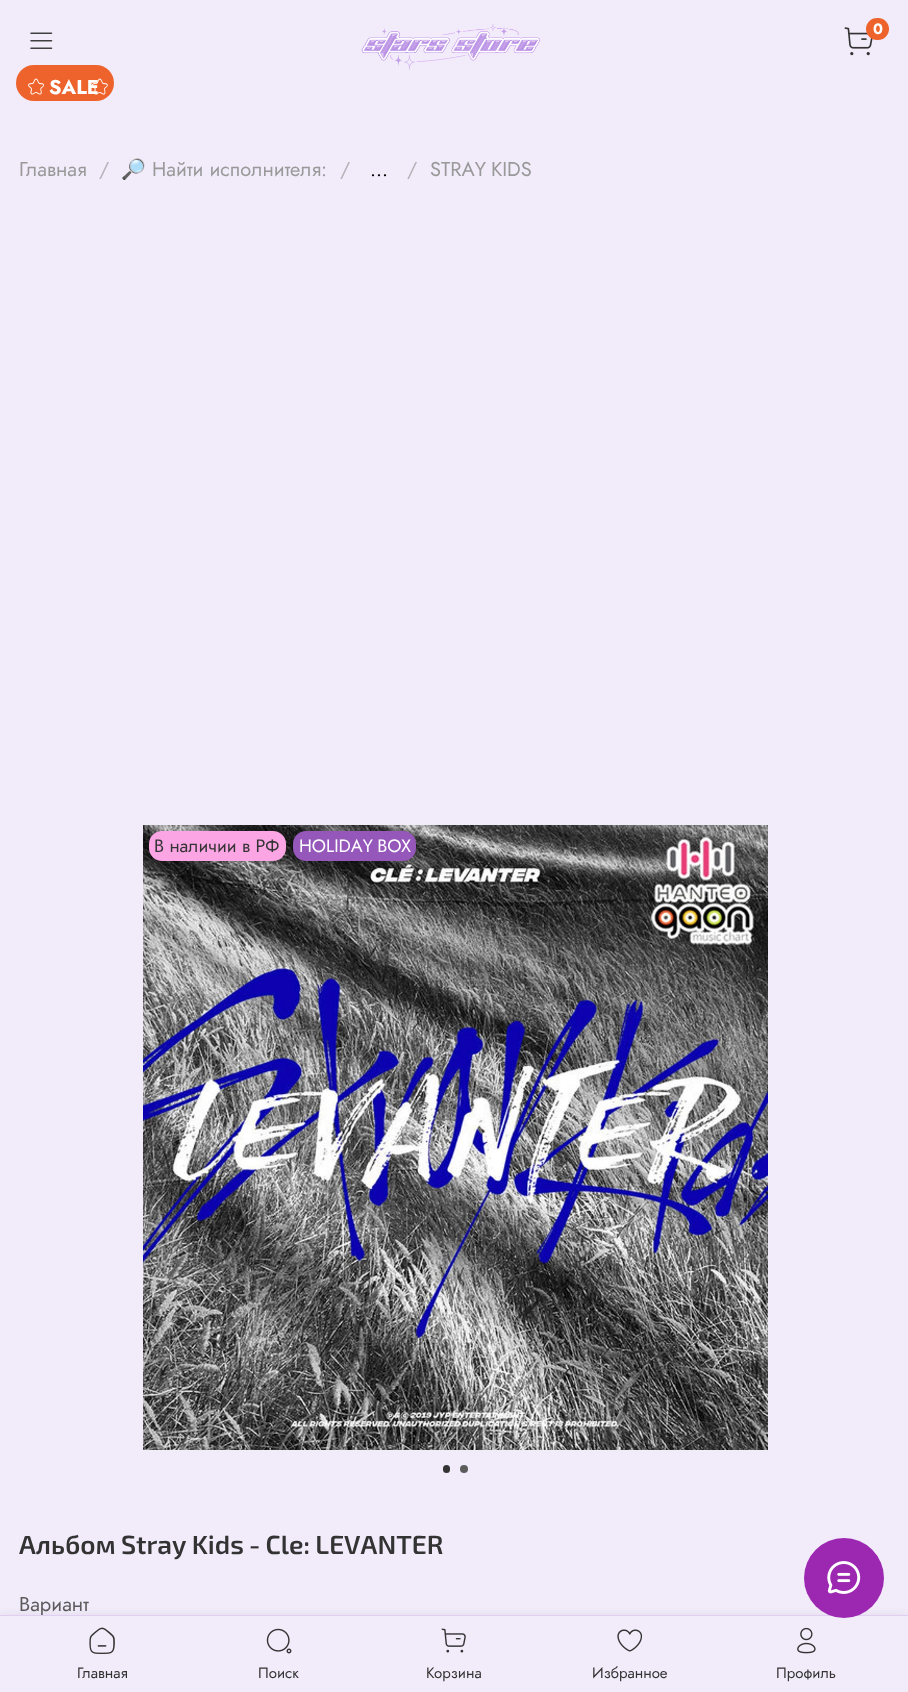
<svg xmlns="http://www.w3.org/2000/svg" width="908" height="1692">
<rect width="100%" height="100%" fill="#f2ebfa"/>
<image x="30" y="32" width="23" height="17" href="media/1.png"/>
<image x="361" y="24" width="180" height="46" href="media/2.png"/>
<image x="844" y="27" width="29" height="29" href="media/3.png"/>
<rect x="866" y="18" width="23" height="22" rx="11" fill="#ee632c"/>
<text x="873" y="34" style="font-family:Jost;font-size:15px;font-weight:bold;fill:#fff">0</text>
<rect x="16" y="65" width="98" height="36" rx="18" fill="#ee632c"/>
<image x="28" y="78" width="16" height="17" href="media/4.png"/>
<text x="49" y="94" style="font-family:Jost;font-size:20px;font-weight:bold;fill:#fff">SALE</text>
<image x="91" y="78" width="17" height="17" href="media/5.png"/>
<text x="19" y="176" style="font-family:Jost;font-size:20px;fill:#999">Главная</text>
<text x="99" y="176" style="font-family:Jost;font-size:20px;fill:#b4b2b6">/</text>
<text x="121" y="176" style="font-family:Noto Color Emoji;font-size:20px;fill:#999">🔎</text>
<text x="152" y="176" style="font-family:Jost;font-size:20px;fill:#999">Найти исполнителя:</text>
<text x="340" y="176" style="font-family:Jost;font-size:20px;fill:#b4b2b6">/</text>
<text x="370" y="176" style="font-family:Jost;font-size:20px;fill:#000">...</text>
<text x="407" y="176" style="font-family:Jost;font-size:20px;fill:#b4b2b6">/</text>
<text x="430" y="176" word-spacing="-1" style="font-family:Jost;font-size:20px;fill:#999">STRAY KIDS</text>
<image x="143" y="825" width="625" height="625" href="media/6.png"/>
<rect x="443" y="1465" width="7" height="8" rx="3.5" fill="#333"/>
<circle cx="464" cy="1469" r="4" fill="#5c5c5c"/>
<rect x="149" y="831" width="137" height="30" rx="13" fill="#fca5e5"/>
<text x="154" y="852" style="font-family:Jost;font-size:18px;fill:#333">В наличии в РФ</text>
<rect x="293" y="831" width="123" height="30" rx="13" fill="#9558ba"/>
<text x="299" y="852" word-spacing="-1" style="font-family:Jost;font-size:18px;fill:#fff">HOLIDAY BOX</text>
<text x="19" y="1554" word-spacing="-0.5" style="font-family:'Exo 2';font-size:26.25px;font-weight:600;fill:#333">Альбом Stray Kids - Cle: LEVANTER</text>
<text x="19" y="1611" style="font-family:Jost;font-size:20px;fill:#5c5c5c">Вариант</text>
<rect y="1618" width="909" height="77" fill="#0000001f" filter="blur(6px)"/>
<rect y="1616" width="908" height="76" fill="#f2ebfa"/>
<rect y="1615" width="908" height="1" fill="#e0cff3"/>
<circle cx="844" cy="1578" r="40" fill="#9c28b1"/>
<image x="827" y="1561" width="34" height="33" href="media/7.png"/>
<image x="89" y="1627" width="26" height="27" href="media/8.png"/>
<text x="77" y="1678" style="font-family:Jost;font-size:15px;fill:#333">Главная</text>
<image x="266" y="1628" width="26" height="26" href="media/9.png"/>
<text x="258" y="1678" style="font-family:Jost;font-size:15px;fill:#333">Поиск</text>
<image x="441" y="1628" width="25" height="25" href="media/10.png"/>
<text x="426" y="1678" style="font-family:Jost;font-size:15px;fill:#333">Корзина</text>
<image x="617" y="1629" width="26" height="23" href="media/11.png"/>
<text x="592" y="1678" style="font-family:Jost;font-size:15px;fill:#333">Избранное</text>
<image x="797" y="1627" width="19" height="27" href="media/12.png"/>
<text x="776" y="1678" style="font-family:Jost;font-size:15px;fill:#333">Профиль</text>
</svg>
